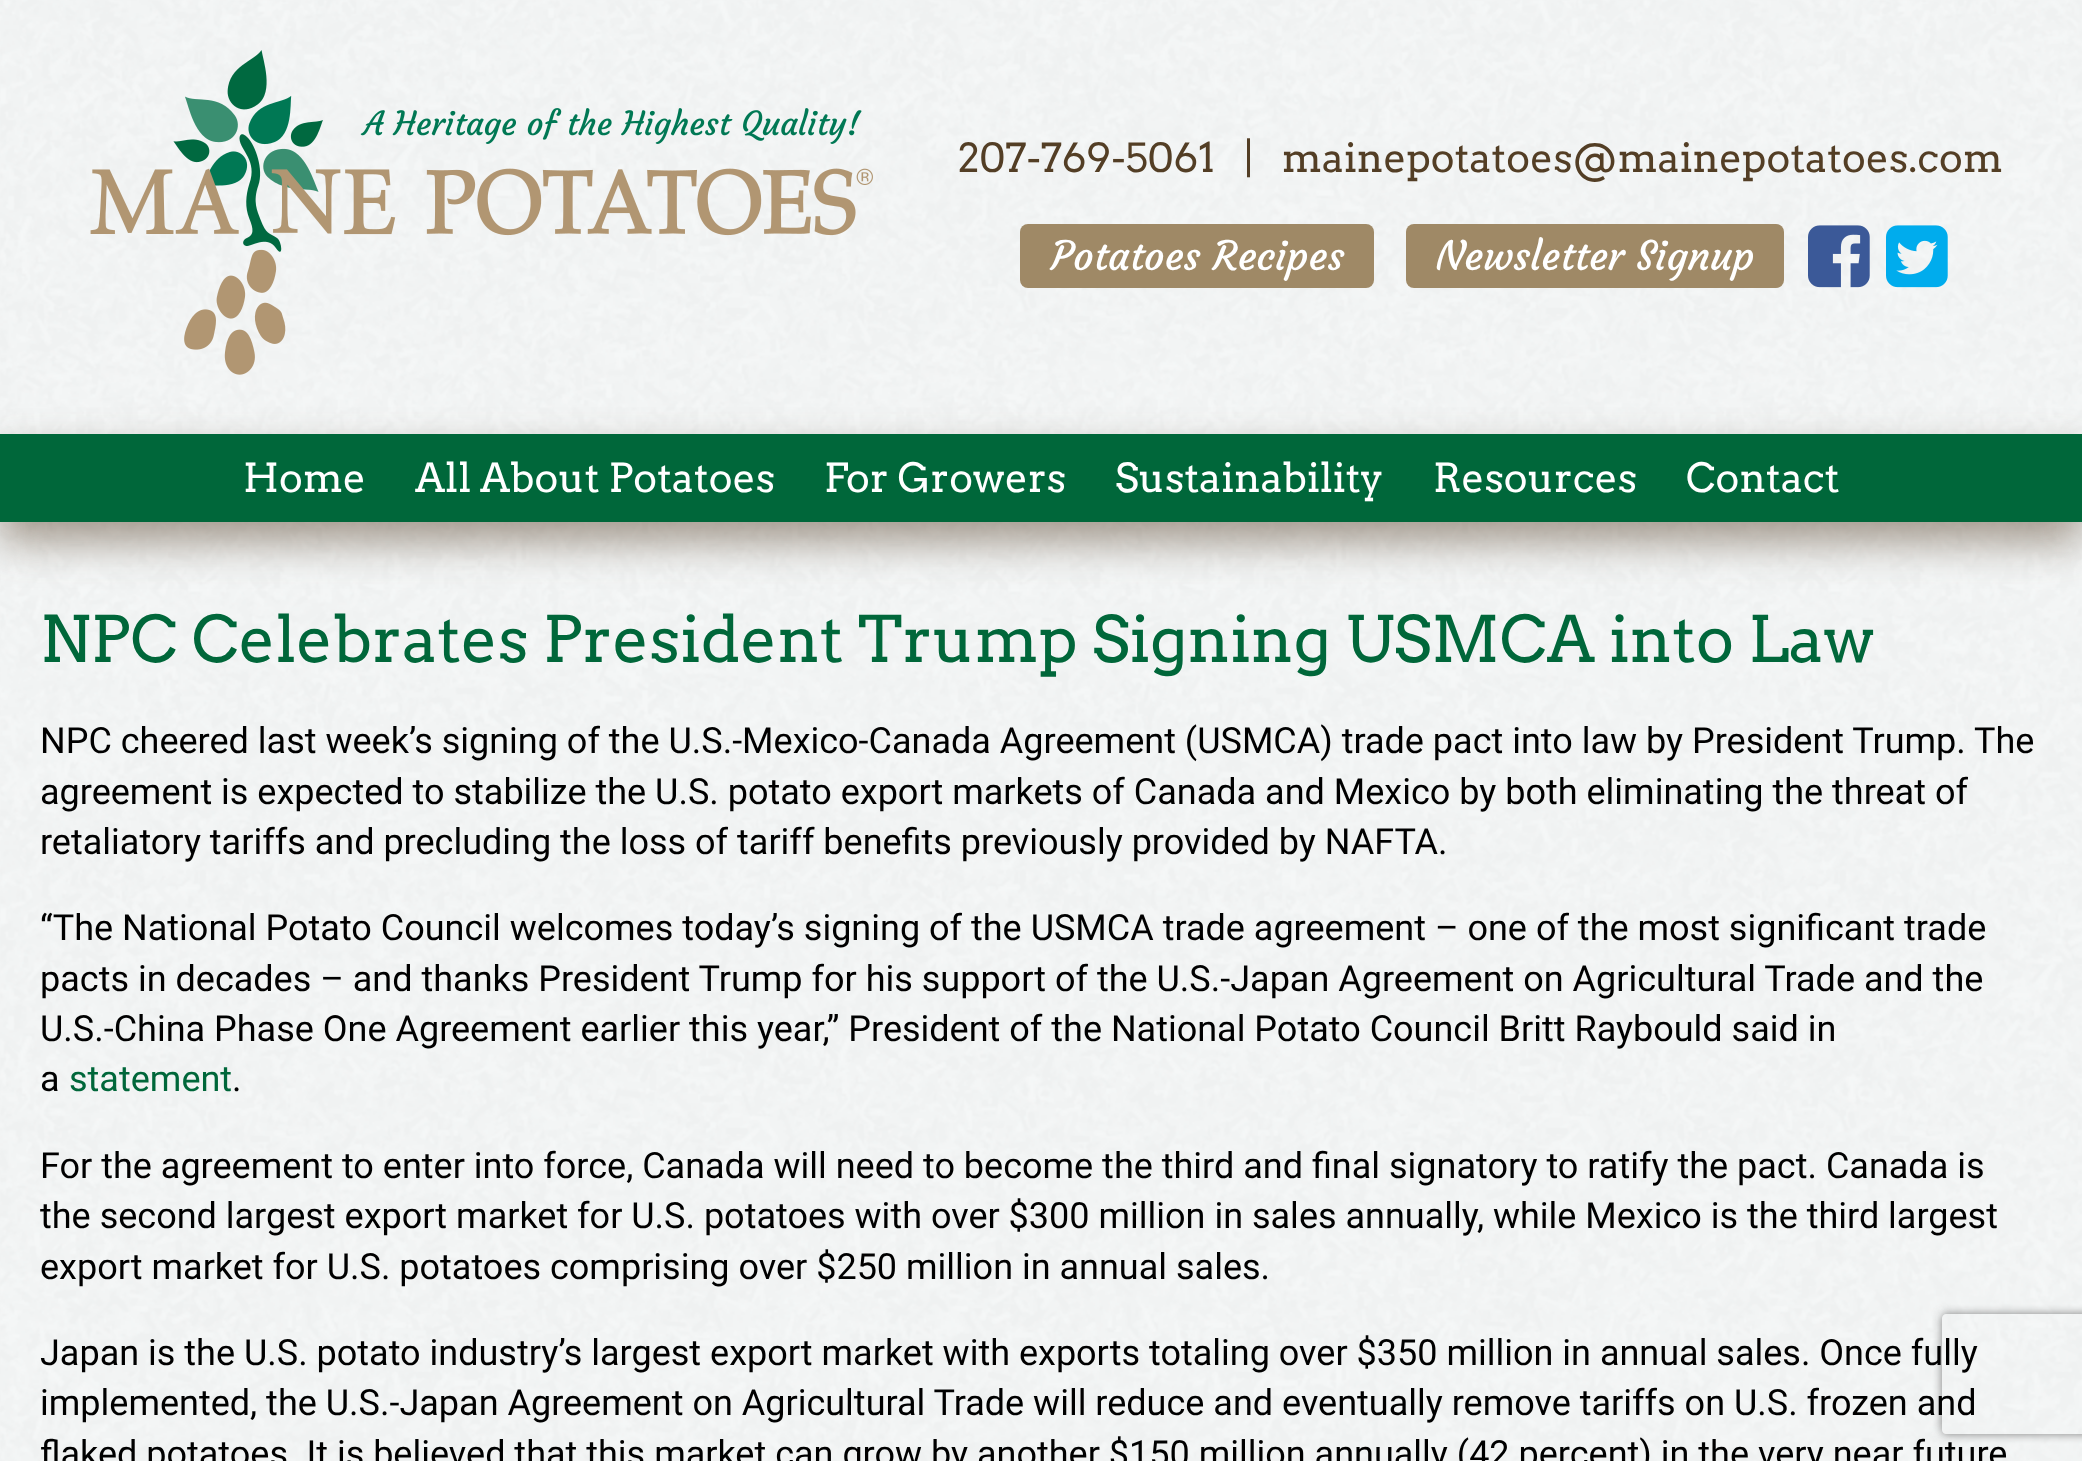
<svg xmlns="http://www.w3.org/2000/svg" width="2082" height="1461">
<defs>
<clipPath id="clip1"><path d="M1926 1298h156v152h-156zm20 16h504c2 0 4 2 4 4v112c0 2-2 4-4 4h-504c-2 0-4-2-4-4v-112c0-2 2-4 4-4z" clip-rule="evenodd"/></clipPath>
</defs>
<rect width="100%" height="100%" fill="#fff"/>
<image x="0" y="0" width="2082" height="1461" href="media/1.png"/>
<image x="90" y="50" width="783" height="325" href="media/2.png"/>
<text x="958" y="172" style="font-family:Arvo;font-size:40px;fill:#533e25">207-769-5061</text>
<text x="1244" y="172" style="font-family:Arvo;font-size:40px;fill:#533e25">|</text>
<text x="1282" y="172" style="font-family:Arvo;font-size:40px;fill:#533e25">mainepotatoes@mainepotatoes.com</text>
<rect x="1020" y="224" width="354" height="64" rx="8" fill="#9f8966"/>
<text x="1051" y="270" style="font-family:Courgette;font-size:40px;fill:#fff">Potatoes Recipes</text>
<rect x="1406" y="224" width="378" height="64" rx="8" fill="#9f8966"/>
<text x="1436" y="270" style="font-family:Courgette;font-size:40px;fill:#fff">Newsletter Signup</text>
<image x="1808" y="225" width="62" height="63" href="media/3.png"/>
<image x="1886" y="225" width="62" height="63" href="media/4.png"/>
<rect y="454" width="2082" height="88" fill="#533e2580" filter="blur(20px)"/>
<rect y="434" width="2082" height="88" fill="#00673a"/>
<text x="243" y="492" style="font-family:Arvo;font-size:40px;fill:#fff">Home</text>
<text x="415" y="492" style="font-family:Arvo;font-size:40px;fill:#fff">All About Potatoes</text>
<text x="824" y="492" style="font-family:Arvo;font-size:40px;fill:#fff">For Growers</text>
<text x="1115" y="492" style="font-family:Arvo;font-size:40px;fill:#fff">Sustainability</text>
<text x="1433" y="492" style="font-family:Arvo;font-size:40px;fill:#fff">Resources</text>
<text x="1686" y="492" style="font-family:Arvo;font-size:40px;fill:#fff">Contact</text>
<text x="40" y="662" style="font-family:Arvo;font-size:64px;fill:#00673a">NPC Celebrates President Trump Signing USMCA into Law</text>
<text x="40" y="753" style="font-family:Roboto;font-size:36px;fill:#000">NPC cheered last week’s signing of the U.S.-Mexico-Canada Agreement (USMCA) trade pact into law by President Trump. The</text>
<text x="40" y="804" style="font-family:Roboto;font-size:36px;fill:#000">agreement is expected to stabilize the U.S. potato export markets of Canada and Mexico by both eliminating the threat of</text>
<text x="40" y="854" style="font-family:Roboto;font-size:36px;fill:#000">retaliatory tariffs and precluding the loss of tariff benefits previously provided by NAFTA.</text>
<text x="40" y="940" style="font-family:Roboto;font-size:36px;fill:#000">“The National Potato Council welcomes today’s signing of the USMCA trade agreement – one of the most significant trade</text>
<text x="40" y="991" style="font-family:Roboto;font-size:36px;fill:#000">pacts in decades – and thanks President Trump for his support of the U.S.-Japan Agreement on Agricultural Trade and the</text>
<text x="40" y="1041" style="font-family:Roboto;font-size:36px;fill:#000">U.S.-China Phase One Agreement earlier this year,” President of the National Potato Council Britt Raybould said in</text>
<text x="40" y="1091" style="font-family:Roboto;font-size:36px;fill:#000">a</text>
<text x="69" y="1091" style="font-family:Roboto;font-size:36px;fill:#00673a">statement</text>
<text x="232" y="1091" style="font-family:Roboto;font-size:36px;fill:#000">.</text>
<text x="40" y="1178" style="font-family:Roboto;font-size:36px;fill:#000">For the agreement to enter into force, Canada will need to become the third and final signatory to ratify the pact. Canada is</text>
<text x="40" y="1228" style="font-family:Roboto;font-size:36px;fill:#000">the second largest export market for U.S. potatoes with over $300 million in sales annually, while Mexico is the third largest</text>
<text x="40" y="1279" style="font-family:Roboto;font-size:36px;fill:#000">export market for U.S. potatoes comprising over $250 million in annual sales.</text>
<g clip-path="url(#clip1)">
<rect x="1942" y="1314" width="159" height="120" rx="4" fill="#808080" filter="blur(5px)"/>
</g>
<text x="40" y="1365" style="font-family:Roboto;font-size:36px;fill:#000">Japan is the U.S. potato industry’s largest export market with exports totaling over $350 million in annual sales. Once fully</text>
<text x="40" y="1415" style="font-family:Roboto;font-size:36px;fill:#000">implemented, the U.S.-Japan Agreement on Agricultural Trade will reduce and eventually remove tariffs on U.S. frozen and</text>
<text x="40" y="1466" style="font-family:Roboto;font-size:36px;fill:#000">flaked potatoes. It is believed that this market can grow by another $150 million annually (42 percent) in the very near future</text>
</svg>
